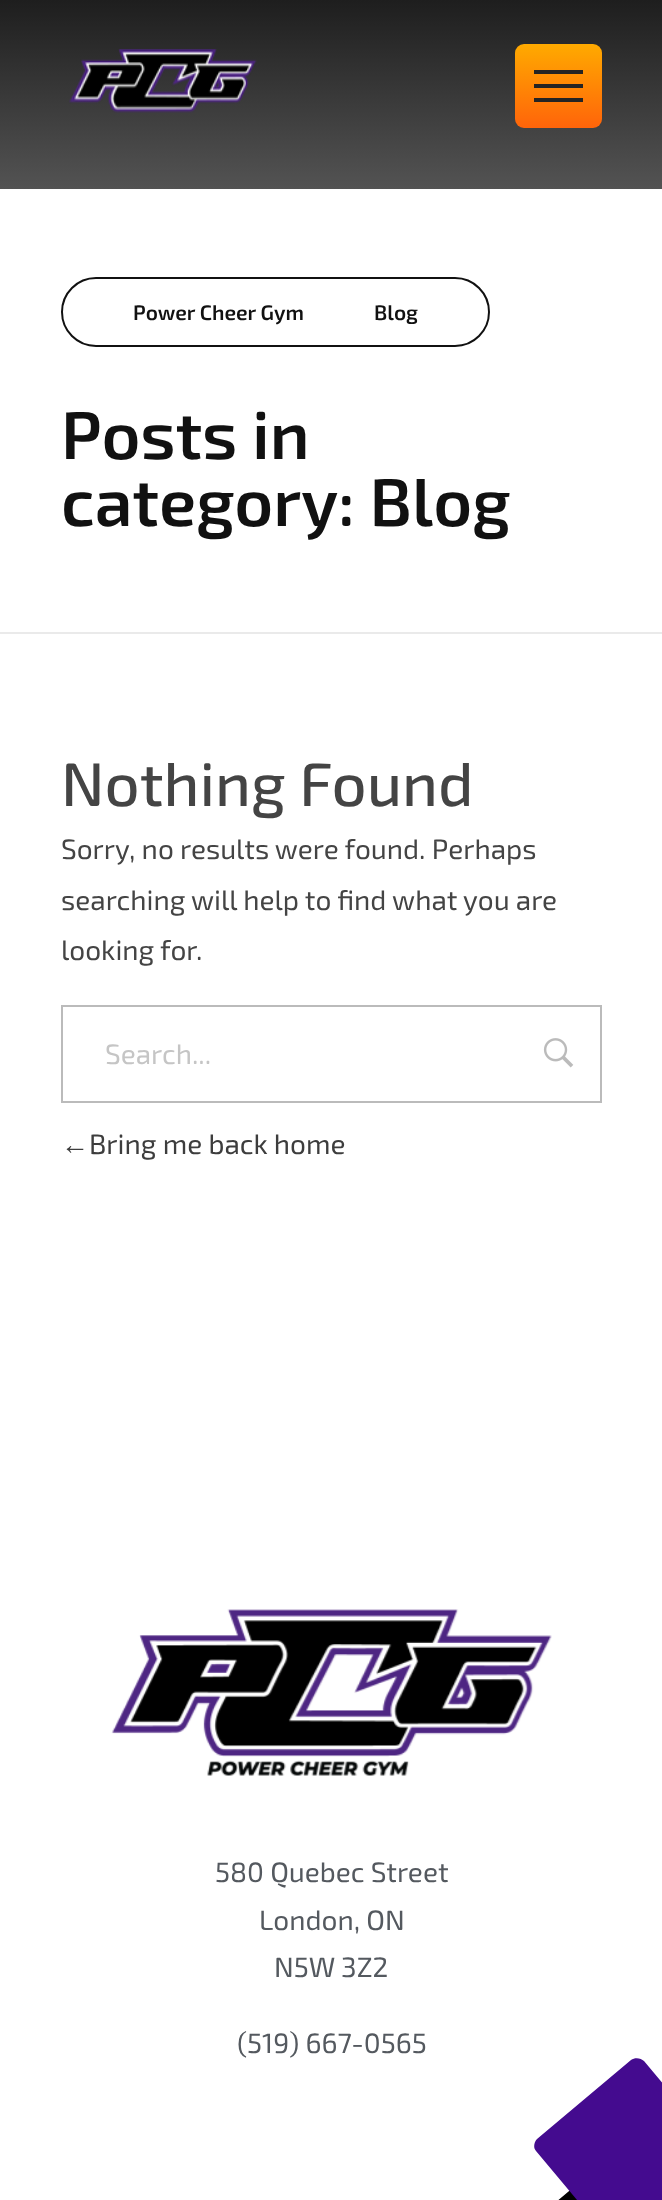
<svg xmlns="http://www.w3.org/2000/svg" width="662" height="2200">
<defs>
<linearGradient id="g1" gradientUnits="userSpaceOnUse" x1="332" y1="0" x2="332" y2="189"><stop offset="0" stop-color="#1e1e1e"/><stop offset="1" stop-color="#535353"/></linearGradient>
<linearGradient id="g2" gradientUnits="userSpaceOnUse" x1="558" y1="44" x2="558" y2="128"><stop offset="0" stop-color="#fa0"/><stop offset="1" stop-color="#ff640a"/></linearGradient>
</defs>
<rect width="100%" height="100%" fill="#fff"/>
<rect width="662" height="189" fill="url(#g1)"/>
<image x="69" y="49" width="188" height="64" href="media/1.png"/>
<rect x="515" y="44" width="87" height="84" rx="9" fill="url(#g2)"/>
<rect x="534" y="70" width="49" height="4" fill="#242424"/>
<rect x="534" y="84" width="49" height="4" fill="#242424"/>
<rect x="534" y="98" width="49" height="4" fill="#242424"/>
<rect y="632" width="662" height="2" fill="#eaeaea"/>
<rect x="62" y="278" width="427" height="68" rx="34" fill="none" stroke="#111" stroke-width="2"/>
<text x="133" y="320" style="font-family:'Exo 2';font-size:21px;font-weight:600;fill:#111">Power Cheer Gym</text>
<text x="374" y="320" style="font-family:'Exo 2';font-size:21px;font-weight:600;fill:#111">Blog</text>
<text x="61" y="459" style="font-family:'Exo 2';font-size:67.25px;font-weight:600;fill:#111">Posts in</text>
<text x="61" y="526" style="font-family:'Exo 2';font-size:67.25px;font-weight:600;fill:#111">category: Blog</text>
<text x="61" y="806" style="font-family:'Exo 2';font-size:61.5px;font-weight:500;fill:#444">Nothing Found</text>
<text x="61" y="859" style="font-family:'Exo 2';font-size:28px;fill:#444">Sorry, no results were found. Perhaps</text>
<text x="61" y="910" style="font-family:'Exo 2';font-size:28px;fill:#444">searching will help to find what you are</text>
<text x="61" y="960" style="font-family:'Exo 2';font-size:28px;fill:#444">looking for.</text>
<rect x="62" y="1006" width="539" height="96" fill="none" stroke="#bbb" stroke-width="2"/>
<text x="105" y="1064" style="font-family:'Exo 2';font-size:28px;fill:#c5c5c5">Search...</text>
<image x="543" y="1038" width="31" height="30" href="media/2.png"/>
<text x="61" y="1154" style="font-family:Liberation Sans;font-size:28px;fill:#3d3d3d">←</text>
<text x="89" y="1154" style="font-family:'Exo 2';font-size:28px;fill:#3d3d3d">Bring me back home</text>
<image x="111" y="1609" width="441" height="167" href="media/3.png"/>
<text x="215" y="1882" style="font-family:'Exo 2';font-size:28px;fill:#54595f">580 Quebec Street</text>
<text x="259" y="1930" style="font-family:'Exo 2';font-size:28px;fill:#54595f">London, ON</text>
<text x="274" y="1977" style="font-family:'Exo 2';font-size:28px;fill:#54595f">N5W 3Z2</text>
<text x="237" y="2053" style="font-family:'Exo 2';font-size:28px;fill:#54595f">(519) 667-0565</text>
<path d="M537 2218l94-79c4-3 10-3 13 1l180 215c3 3 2 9-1 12l-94 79c-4 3-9 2-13-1l-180-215c-3-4-2-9 1-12z" fill="#000"/>
<path d="M537 2139l94-79c4-3 10-2 13 1l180 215c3 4 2 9-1 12l-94 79c-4 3-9 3-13-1l-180-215c-3-3-2-9 1-12z" fill="#440b8f"/>
</svg>
